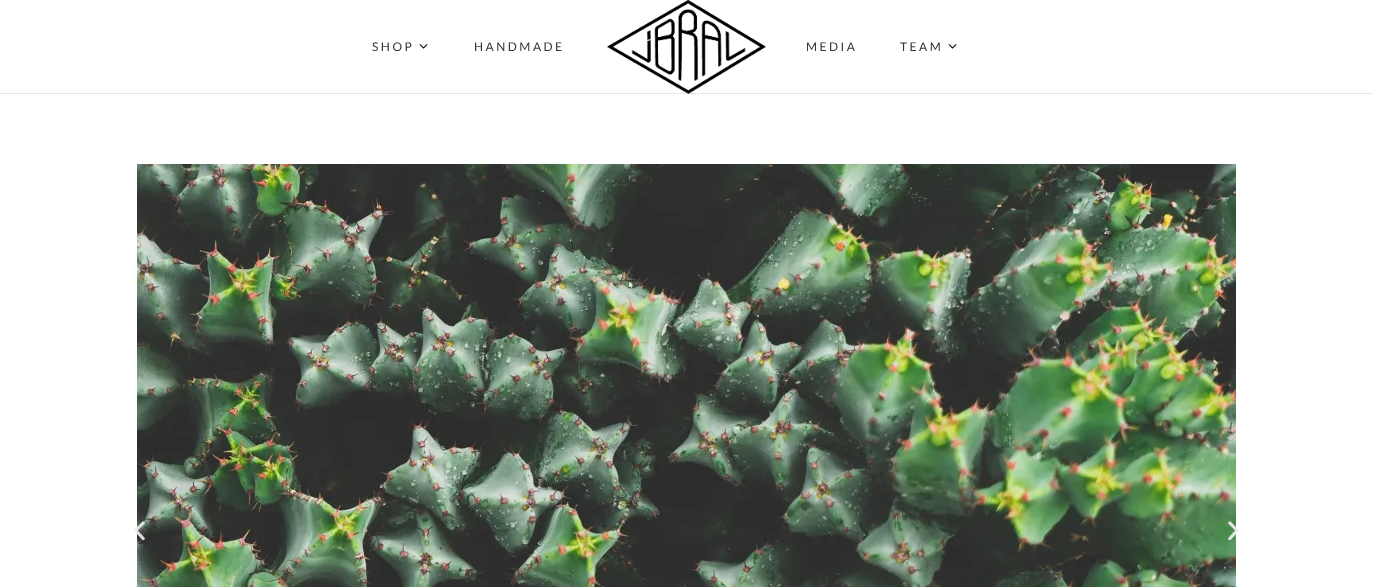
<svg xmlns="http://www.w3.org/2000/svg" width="1373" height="587">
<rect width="100%" height="100%" fill="#fff"/>
<rect y="93" width="1373" height="1" fill="#e6e6e6"/>
<image x="607" y="0" width="159" height="94" href="media/1.png"/>
<text x="372" y="51" style="font-family:Lato;font-size:12px;letter-spacing:2.5px;fill:#333">SHOP</text>
<image x="419" y="44" width="9" height="5" href="media/2.png"/>
<text x="474" y="51" style="font-family:Lato;font-size:12px;letter-spacing:2.5px;fill:#333">HANDMADE</text>
<text x="806" y="51" style="font-family:Lato;font-size:12px;letter-spacing:2.5px;fill:#333">MEDIA</text>
<text x="900" y="51" style="font-family:Lato;font-size:12px;letter-spacing:2.5px;fill:#333">TEAM</text>
<image x="948" y="44" width="9" height="5" href="media/2.png"/>
<image x="137" y="164" width="1099" height="423" href="media/3.png"/>
<image x="134" y="521" width="11" height="20" href="media/4.png"/>
<image x="1228" y="521" width="11" height="20" href="media/5.png"/>
</svg>
